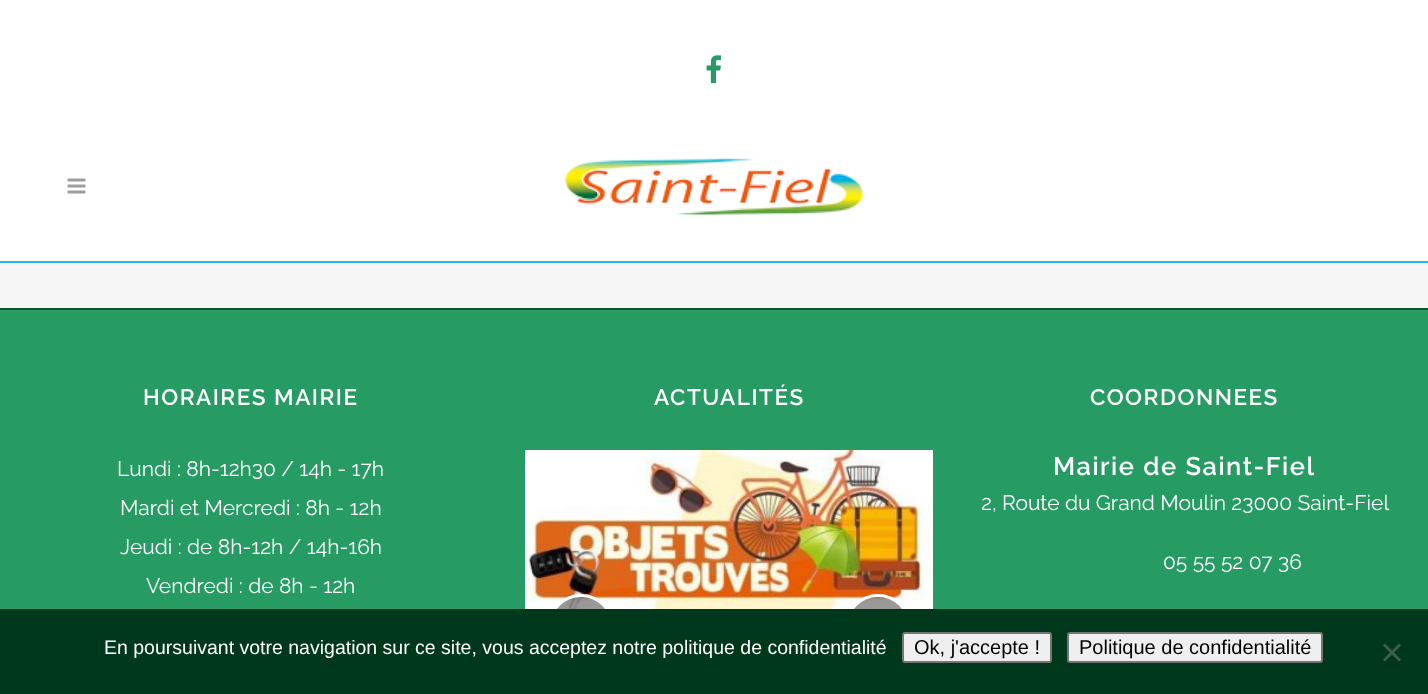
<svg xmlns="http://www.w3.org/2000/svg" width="1428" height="694">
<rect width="100%" height="100%" fill="#f6f6f6"/>
<rect width="1428" height="261" fill="#fff"/>
<rect y="261" width="1428" height="2" fill="#24b8e5"/>
<image x="67" y="178" width="19" height="16" href="media/1.png"/>
<image x="565" y="158" width="298" height="57" href="media/2.png"/>
<image x="706" y="55" width="16" height="29" href="media/3.png"/>
<rect y="310" width="1428" height="299" fill="#269b63"/>
<rect y="308" width="1428" height="2" fill="#00562d"/>
<text x="143" y="405" style="font-family:Raleway;font-size:22.5px;font-weight:600;letter-spacing:1.5px;fill:#fff">HORAIRES MAIRIE</text>
<text x="117" y="476" style="font-family:Raleway;font-size:21px;fill:#fff">Lundi : 8h-12h30 / 14h - 17h</text>
<text x="120" y="515" style="font-family:Raleway;font-size:21px;fill:#fff">Mardi et Mercredi : 8h - 12h</text>
<text x="120" y="554" style="font-family:Raleway;font-size:21px;fill:#fff">Jeudi : de 8h-12h / 14h-16h</text>
<text x="146" y="593" style="font-family:Raleway;font-size:21px;fill:#fff">Vendredi : de 8h - 12h</text>
<text x="654" y="405" style="font-family:Raleway;font-size:22.5px;font-weight:600;letter-spacing:1.5px;fill:#fff">ACTUALITÉS</text>
<image x="525" y="450" width="408" height="159" href="media/4.png"/>
<circle cx="581" cy="627" r="31.5" fill="#00000066" stroke="#fff" stroke-width="3"/>
<circle cx="878" cy="627" r="31.5" fill="#00000066" stroke="#fff" stroke-width="3"/>
<text x="1090" y="405" style="font-family:Raleway;font-size:22.5px;font-weight:600;letter-spacing:1.5px;fill:#fff">COORDONNEES</text>
<text x="1053" y="475" style="font-family:Raleway;font-size:25.5px;font-weight:600;letter-spacing:1.5px;fill:#fff">Mairie de Saint-Fiel</text>
<text x="981" y="510" style="font-family:Raleway;font-size:21px;fill:#fff">2, Route du Grand Moulin 23000 Saint-Fiel</text>
<text x="1163" y="569" style="font-family:Raleway;font-size:21px;fill:#fff">05 55 52 07 36</text>
<rect y="609" width="1428" height="85" fill="#00381d"/>
<text x="104" y="654" style="font-family:Liberation Sans;font-size:19.5px;fill:#fff">En poursuivant votre navigation sur ce site, vous acceptez notre politique de confidentialité</text>
<rect x="903" y="633" width="148" height="29" rx="2" fill="#efefef" stroke="#767676" stroke-width="2"/>
<text x="914" y="654" style="font-family:Liberation Sans;font-size:20px;fill:#000">Ok, j'accepte !</text>
<rect x="1068" y="633" width="254" height="29" rx="2" fill="#efefef" stroke="#767676" stroke-width="2"/>
<text x="1079" y="654" style="font-family:Liberation Sans;font-size:20px;fill:#000">Politique de confidentialité</text>
<path d="M1399 643.5l2 2l-16 16l-2-2z" fill="#405c4f"/>
<path d="M1383 645.5l2-2l16 16l-2 2z" fill="#405c4f"/>
</svg>
